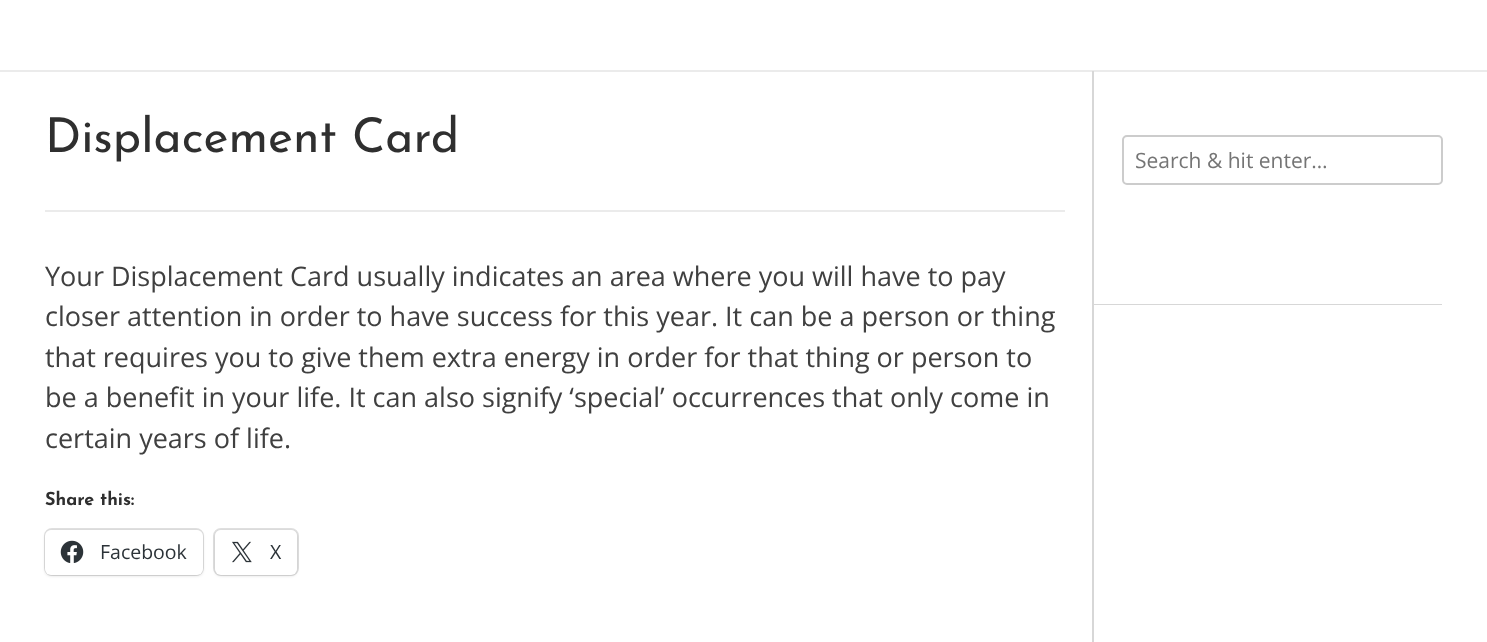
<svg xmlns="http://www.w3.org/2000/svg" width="1487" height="642">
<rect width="100%" height="100%" fill="#fff"/>
<rect y="70" width="1487" height="2" fill="#ebebeb"/>
<rect x="1092" y="305" width="2" height="337" fill="#d7d7d7"/>
<rect x="45" y="210" width="1020" height="2" fill="#ebebeb"/>
<text x="45" y="152" style="font-family:Josefin Sans;font-size:48px;fill:#2f2f2f">Displacement Card</text>
<text x="45" y="286" style="font-family:Open Sans;font-size:27px;fill:#404040">Your Displacement Card usually indicates an area where you will have to pay</text>
<text x="45" y="326" style="font-family:Open Sans;font-size:27px;fill:#404040">closer attention in order to have success for this year. It can be a person or thing</text>
<text x="45" y="367" style="font-family:Open Sans;font-size:27px;fill:#404040">that requires you to give them extra energy in order for that thing or person to</text>
<text x="45" y="407" style="font-family:Open Sans;font-size:27px;fill:#404040">be a benefit in your life. It can also signify ‘special’ occurrences that only come in</text>
<text x="45" y="448" style="font-family:Open Sans;font-size:27px;fill:#404040">certain years of life.</text>
<text x="45" y="505" style="font-family:Josefin Sans;font-size:18px;font-weight:bold;fill:#2f2f2f">Share this:</text>
<rect x="45" y="529" width="158" height="46" rx="7" fill="none" stroke="#e0e0e0" stroke-width="2"/>
<rect x="45" y="531" width="158" height="45" rx="6" fill="#0000001f" filter="blur(1.5px)"/>
<rect x="45" y="530" width="158" height="45" rx="6" fill="#fff"/>
<image x="60" y="540" width="24" height="23" href="media/1.png"/>
<text x="100" y="559" style="font-family:Open Sans;font-size:19.5px;fill:#2c3338">Facebook</text>
<rect x="214" y="529" width="84" height="46" rx="7" fill="none" stroke="#e0e0e0" stroke-width="2"/>
<rect x="215" y="531" width="82" height="45" rx="6" fill="#0000001f" filter="blur(1.5px)"/>
<rect x="215" y="530" width="82" height="45" rx="6" fill="#fff"/>
<image x="232" y="541" width="20" height="22" href="media/2.png"/>
<text x="270" y="559" style="font-family:Open Sans;font-size:19.5px;fill:#2c3338">X</text>
<path d="M1092 71v234h350v-1h-348v-233z" fill="#d7d7d7"/>
<rect x="1123" y="136" width="319" height="48" rx="4" fill="none" stroke="#ccc" stroke-width="2"/>
<text x="1135" y="168" style="font-family:Open Sans;font-size:21px;fill:#757575">Search &amp; hit enter…</text>
</svg>
